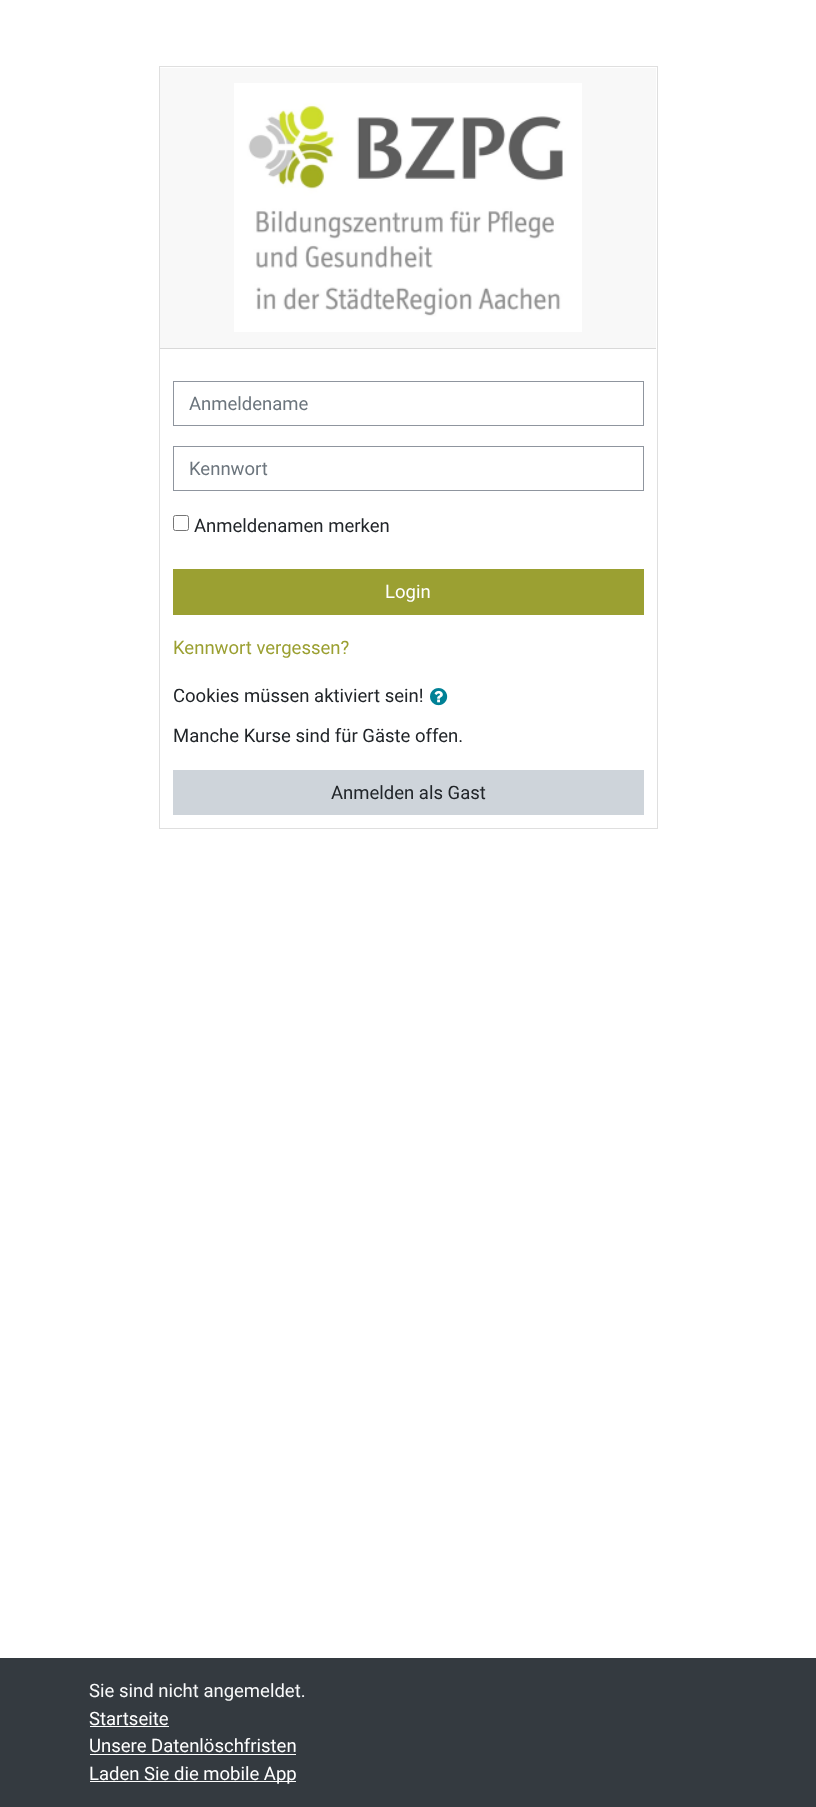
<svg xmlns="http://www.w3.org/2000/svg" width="816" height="1807">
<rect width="100%" height="100%" fill="#fff"/>
<rect x="159.5" y="66.5" width="498" height="762" fill="none" stroke="#dfdfdf"/>
<rect x="160" y="68" width="496" height="280" fill="#f8f8f8"/>
<rect x="160" y="348" width="496" height="1" fill="#d9d9d9"/>
<image x="234" y="83" width="348" height="249" href="media/1.png"/>
<rect x="173.5" y="381.5" width="470" height="44" fill="none" stroke="#8f959e"/>
<text x="189" y="410" style="font-family:Roboto;font-size:18.5px;fill:#6c757d">Anmeldename</text>
<rect x="173.5" y="446.5" width="470" height="44" fill="none" stroke="#8f959e"/>
<text x="189" y="475" style="font-family:Roboto;font-size:18.5px;fill:#6c757d">Kennwort</text>
<rect x="173.5" y="515.5" width="15" height="15" rx="2" fill="none" stroke="#767676"/>
<text x="194" y="532" style="font-family:Roboto;font-size:18.5px;fill:#212529">Anmeldenamen merken</text>
<rect x="173" y="569" width="471" height="46" fill="#9ba032"/>
<text x="385" y="598" style="font-family:Roboto;font-size:18.5px;fill:#fff">Login</text>
<text x="173" y="654" style="font-family:Roboto;font-size:18.5px;fill:#9ba032">Kennwort vergessen?</text>
<text x="173" y="702" style="font-family:Roboto;font-size:18.5px;fill:#212529">Cookies müssen aktiviert sein!</text>
<image x="430" y="688" width="18" height="18" href="media/2.png"/>
<text x="173" y="742" style="font-family:Roboto;font-size:18.5px;fill:#212529">Manche Kurse sind für Gäste offen.</text>
<rect x="173" y="770" width="471" height="45" fill="#ced4da"/>
<text x="331" y="799" style="font-family:Roboto;font-size:18.5px;fill:#212529">Anmelden als Gast</text>
<rect y="1658" width="816" height="149" fill="#343a40"/>
<text x="89" y="1697" style="font-family:Roboto;font-size:18.5px;fill:#f8f9fa">Sie sind nicht angemeldet.</text>
<text x="89" y="1725" style="font-family:Roboto;font-size:18.5px;fill:#fff">Startseite</text>
<rect x="90" y="1726" width="79" height="1" fill="#fff"/>
<text x="89" y="1752" style="font-family:Roboto;font-size:18.5px;fill:#fff">Unsere Datenlöschfristen</text>
<rect x="90" y="1754" width="206" height="1" fill="#fff"/>
<rect x="90" y="1781" width="206" height="1" fill="#fff"/>
<text x="89" y="1780" style="font-family:Roboto;font-size:18.5px;fill:#fff">Laden Sie die mobile App</text>
</svg>
